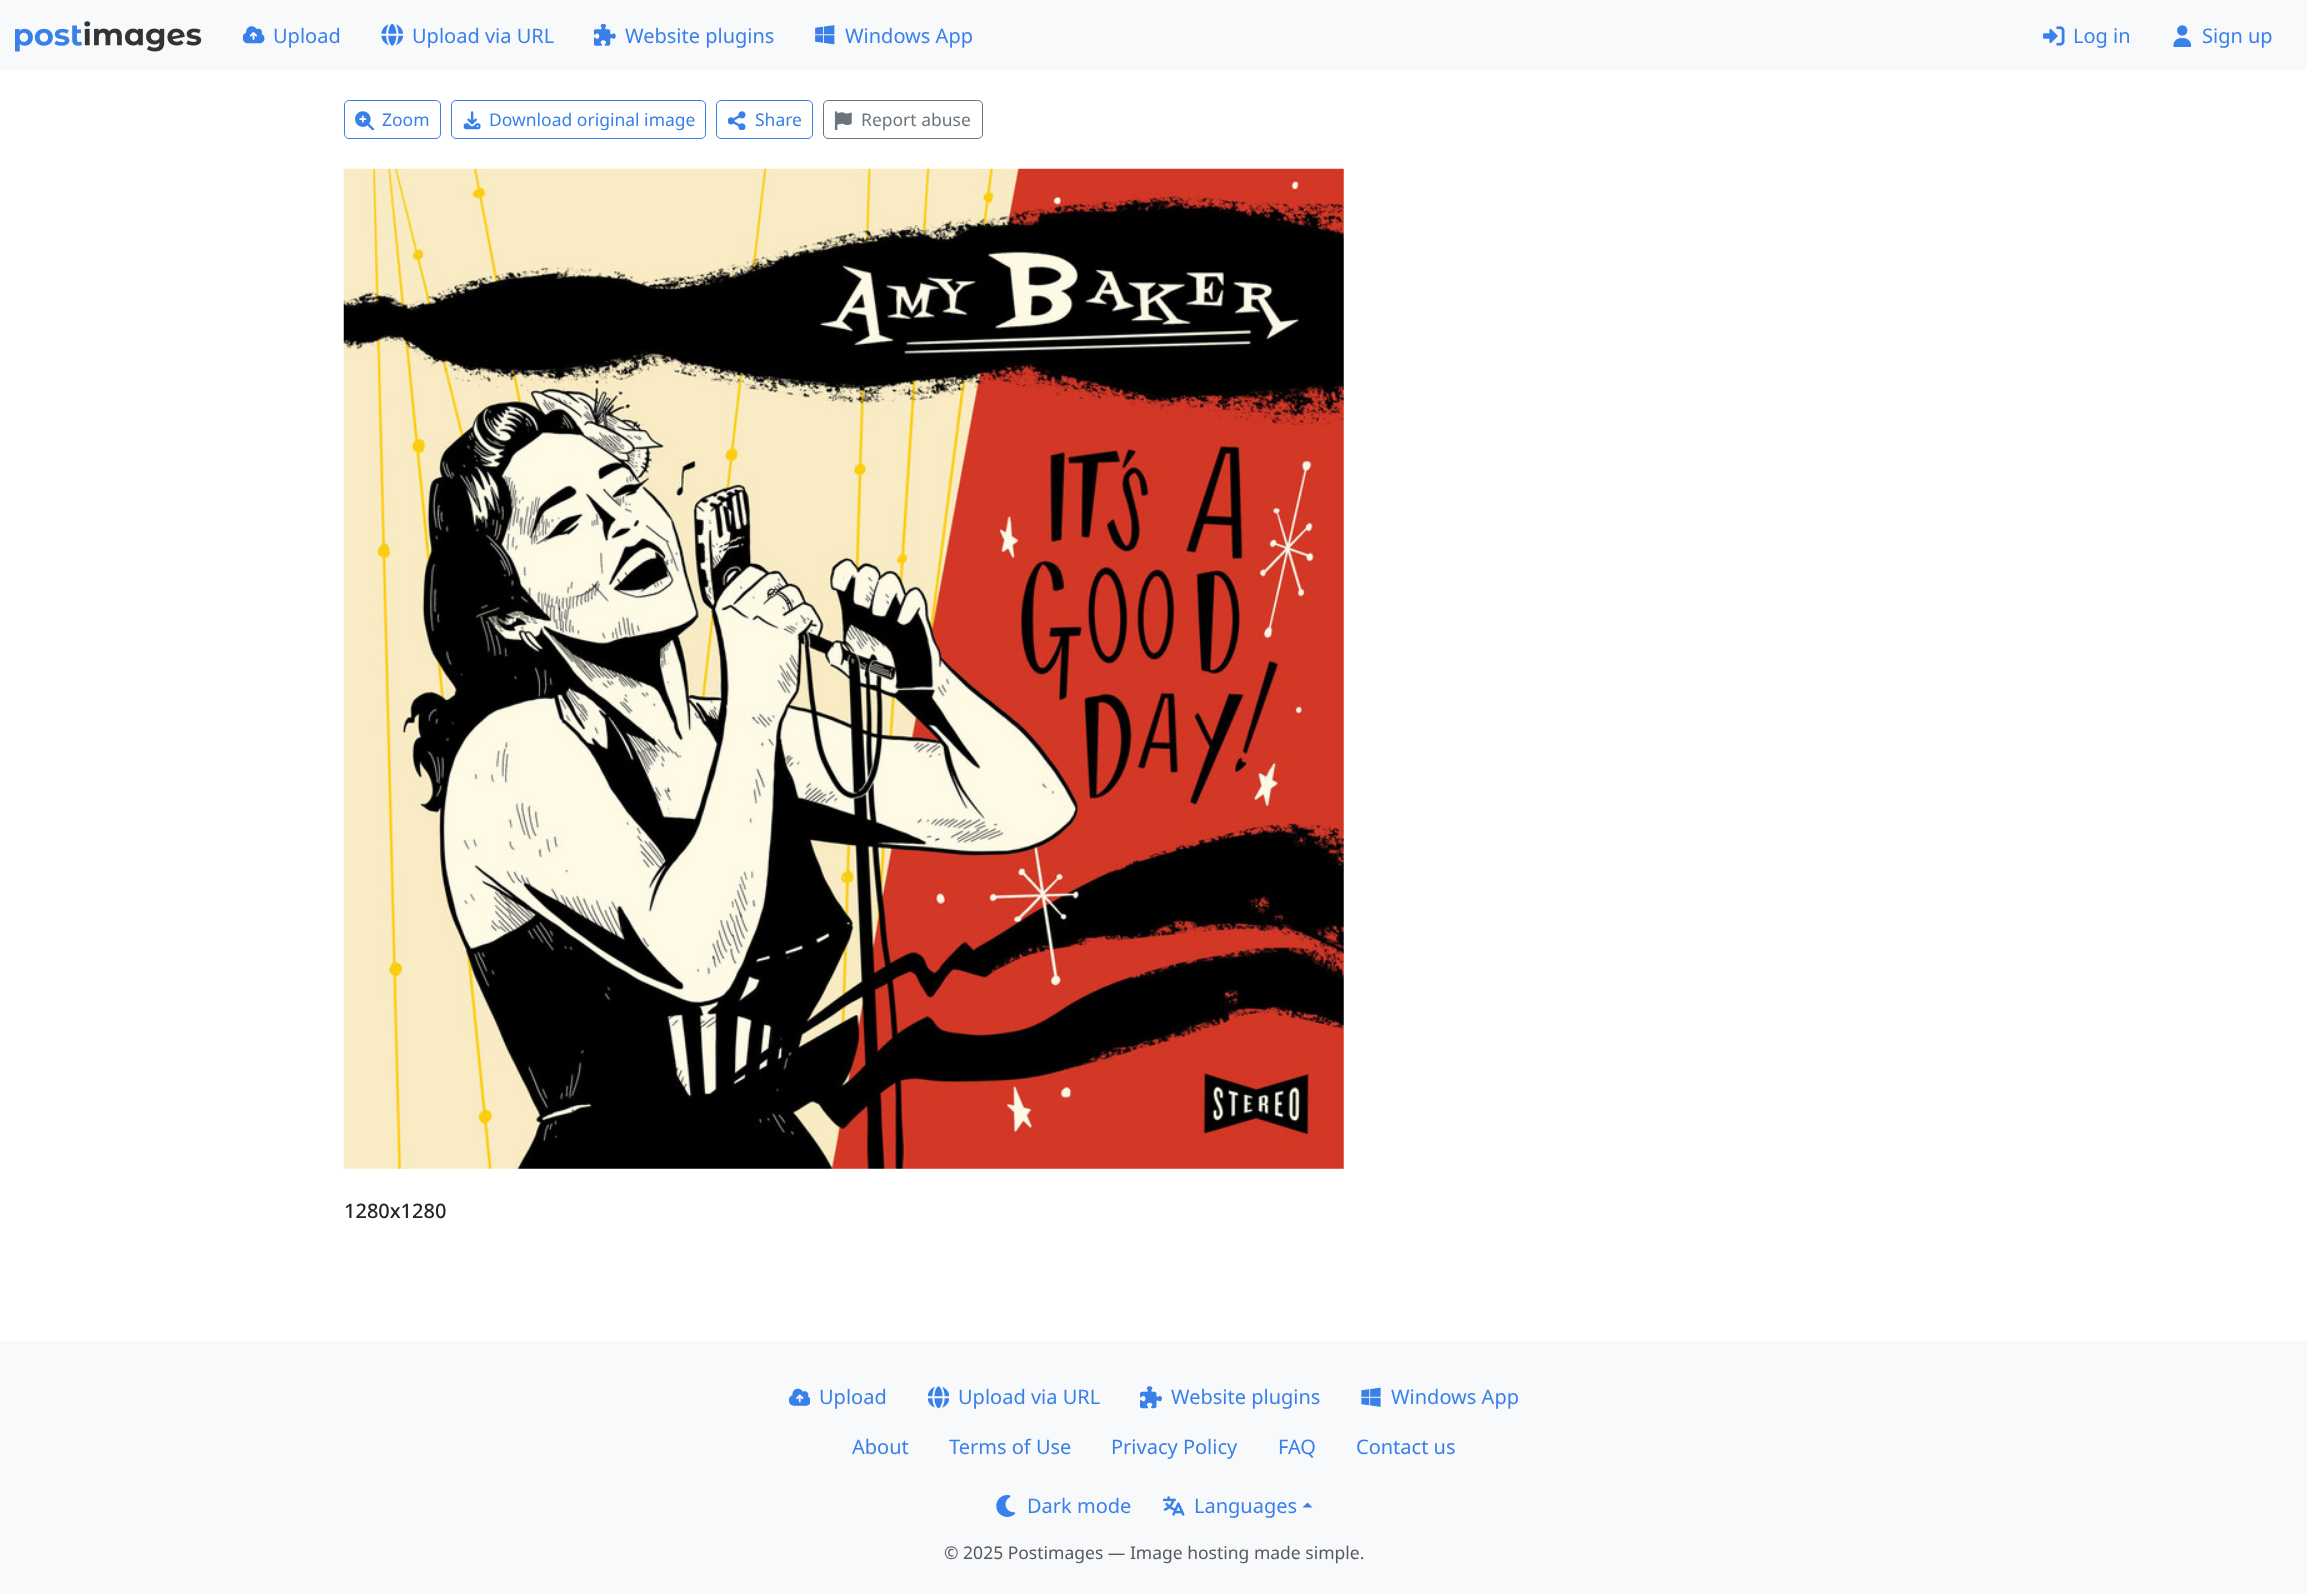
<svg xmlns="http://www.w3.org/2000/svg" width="2307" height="1594">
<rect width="100%" height="100%" fill="#fff"/>
<rect width="2307" height="70" fill="#f8f9fa"/>
<image x="15" y="21" width="187" height="31" href="media/1.png"/>
<image x="243" y="26" width="22" height="18" href="media/2.png"/>
<text x="273" y="43" style="font-family:Noto Sans;font-size:20px;fill:#3a80ea">Upload</text>
<image x="381" y="24" width="22" height="22" href="media/3.png"/>
<text x="412" y="43" style="font-family:Noto Sans;font-size:20px;fill:#3a80ea">Upload via URL</text>
<image x="594" y="24" width="22" height="22" href="media/4.png"/>
<text x="625" y="43" style="font-family:Noto Sans;font-size:20px;fill:#3a80ea">Website plugins</text>
<image x="815" y="25" width="20" height="20" href="media/5.png"/>
<text x="845" y="43" style="font-family:Noto Sans;font-size:20px;fill:#3a80ea">Windows App</text>
<image x="2043" y="26" width="22" height="20" href="media/6.png"/>
<text x="2073" y="43" style="font-family:Noto Sans;font-size:20px;fill:#3a80ea">Log in</text>
<image x="2173" y="25" width="19" height="22" href="media/7.png"/>
<text x="2202" y="43" style="font-family:Noto Sans;font-size:20px;fill:#3a80ea">Sign up</text>
<rect x="344.5" y="100.5" width="96" height="38" rx="4.5" fill="none" stroke="#3a80ea"/>
<image x="355" y="111" width="19" height="19" href="media/8.png"/>
<text x="382" y="126" style="font-family:Noto Sans;font-size:17.5px;fill:#3a80ea">Zoom</text>
<rect x="451.5" y="100.5" width="254" height="38" rx="4.5" fill="none" stroke="#3a80ea"/>
<image x="463" y="111" width="18" height="19" href="media/9.png"/>
<text x="489" y="126" style="font-family:Noto Sans;font-size:17.5px;fill:#3a80ea">Download original image</text>
<rect x="716.5" y="100.5" width="96" height="38" rx="4.5" fill="none" stroke="#3a80ea"/>
<image x="728" y="111" width="18" height="19" href="media/10.png"/>
<text x="755" y="126" style="font-family:Noto Sans;font-size:17.5px;fill:#3a80ea">Share</text>
<rect x="823.5" y="100.5" width="159" height="38" rx="4.5" fill="none" stroke="#6c757d"/>
<image x="834" y="111" width="18" height="19" href="media/11.png"/>
<text x="861" y="126" style="font-family:Noto Sans;font-size:17.5px;fill:#6c757d">Report abuse</text>
<image x="343" y="168" width="1001" height="1001" href="media/12.png"/>
<text x="344" y="1218" style="font-family:Noto Sans;font-size:20px;font-weight:500;fill:#212529">1280x1280</text>
<rect y="1341" width="2307" height="253" fill="#f8f9fa"/>
<image x="789" y="1388" width="21" height="18" href="media/13.png"/>
<text x="819" y="1404" style="font-family:Noto Sans;font-size:20px;fill:#3a80ea">Upload</text>
<image x="928" y="1386" width="21" height="23" href="media/14.png"/>
<text x="958" y="1404" style="font-family:Noto Sans;font-size:20px;fill:#3a80ea">Upload via URL</text>
<image x="1140" y="1386" width="22" height="23" href="media/15.png"/>
<text x="1171" y="1404" style="font-family:Noto Sans;font-size:20px;fill:#3a80ea">Website plugins</text>
<image x="1361" y="1387" width="20" height="20" href="media/16.png"/>
<text x="1391" y="1404" style="font-family:Noto Sans;font-size:20px;fill:#3a80ea">Windows App</text>
<text x="852" y="1454" style="font-family:Noto Sans;font-size:20px;fill:#3a80ea">About</text>
<text x="949" y="1454" style="font-family:Noto Sans;font-size:20px;fill:#3a80ea">Terms of Use</text>
<text x="1111" y="1454" style="font-family:Noto Sans;font-size:20px;fill:#3a80ea">Privacy Policy</text>
<text x="1278" y="1454" style="font-family:Noto Sans;font-size:20px;fill:#3a80ea">FAQ</text>
<text x="1356" y="1454" style="font-family:Noto Sans;font-size:20px;fill:#3a80ea">Contact us</text>
<image x="996" y="1495" width="20" height="22" href="media/17.png"/>
<text x="1027" y="1513" style="font-family:Noto Sans;font-size:20px;fill:#3a80ea">Dark mode</text>
<image x="1163" y="1496" width="22" height="20" href="media/18.png"/>
<text x="1194" y="1513" style="font-family:Noto Sans;font-size:20px;fill:#3a80ea">Languages</text>
<path d="M1312.5 1507.5h-10l5-5z" fill="#3a80ea"/>
<text x="944" y="1559" style="font-family:Noto Sans;font-size:17.5px;fill:#575a5d">© 2025 Postimages — Image hosting made simple.</text>
</svg>
